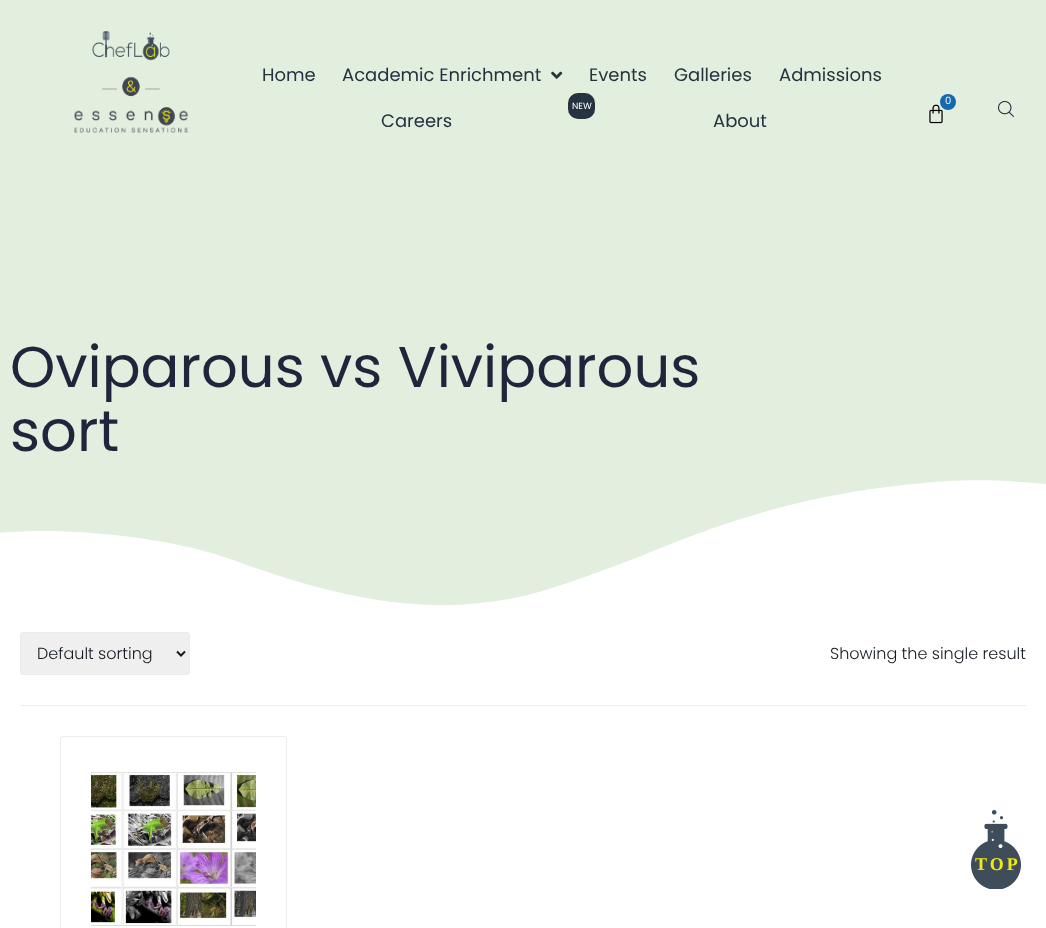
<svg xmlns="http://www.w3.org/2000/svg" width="1046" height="928">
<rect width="100%" height="100%" fill="#fff"/>
<rect width="1046" height="606" fill="#e2efde"/>
<image x="74" y="31" width="115" height="102" href="media/1.png"/>
<text x="262" y="81" style="font-family:Poppins;font-size:18px;fill:#253341">Home</text>
<text x="342" y="81" style="font-family:Poppins;font-size:18px;fill:#253341">Academic Enrichment</text>
<image x="551" y="71" width="12" height="8" href="media/2.png"/>
<text x="589" y="81" style="font-family:Poppins;font-size:18px;fill:#253341">Events</text>
<text x="674" y="81" style="font-family:Poppins;font-size:18px;fill:#253341">Galleries</text>
<text x="779" y="81" style="font-family:Poppins;font-size:18px;fill:#253341">Admissions</text>
<rect x="568" y="93" width="27" height="26" rx="10" fill="#253341"/>
<text x="572" y="109" style="font-family:Poppins;font-size:9px;fill:#fff">NEW</text>
<text x="381" y="127" style="font-family:Poppins;font-size:18px;fill:#253341">Careers</text>
<text x="713" y="127" style="font-family:Poppins;font-size:18px;fill:#253341">About</text>
<image x="929" y="104" width="14" height="20" href="media/3.png"/>
<circle cx="948" cy="102" r="8" fill="#1569ae"/>
<text x="945" y="104" style="font-family:Poppins;font-size:10px;fill:#f3f3f3">0</text>
<image x="971" y="810" width="50" height="79" href="media/4.png"/>
<text x="975" y="870" style="font-family:Liberation Serif;font-size:18px;font-weight:bold;letter-spacing:3px;fill:#f0e913">TOP</text>
<image x="998" y="101" width="16" height="16" href="media/5.png"/>
<text x="10" y="387" style="font-family:Poppins;font-size:57.6px;fill:#1f253b">Oviparous vs Viviparous</text>
<text x="10" y="451" style="font-family:Poppins;font-size:57.6px;fill:#1f253b">sort</text>
<path d="M415 604c31 3 71 0 104-7c33-7 98-31 139-48c105-43 185-59 266-66c33-3 68-5 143 3c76 8 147 34 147 34v93h-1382v-41c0 0 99-43 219-41c54 1 128 9 185 30c29 11 72 25 110 33c38 8 55 9 69 10z" fill="#fff"/>
<rect x="20" y="705" width="1006" height="1" fill="#ebeced"/>
<rect x="20.5" y="632.5" width="169" height="42" rx="2.5" fill="#efefef" stroke="#ebeced"/>
<path d="M177 651.5l4 4l4-4" fill="none" stroke="#151b21" stroke-width="2"/>
<text x="37" y="659" style="font-family:Poppins;font-size:16px;font-weight:300;fill:#151b21">Default sorting</text>
<text x="830" y="659" style="font-family:Poppins;font-size:16px;font-weight:300;fill:#151b21">Showing the single result</text>
<rect x="60.5" y="736.5" width="226" height="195" rx="2.5" fill="none" stroke="#ebeced"/>
<image x="91" y="771" width="165" height="156" href="media/6.png"/>
</svg>
